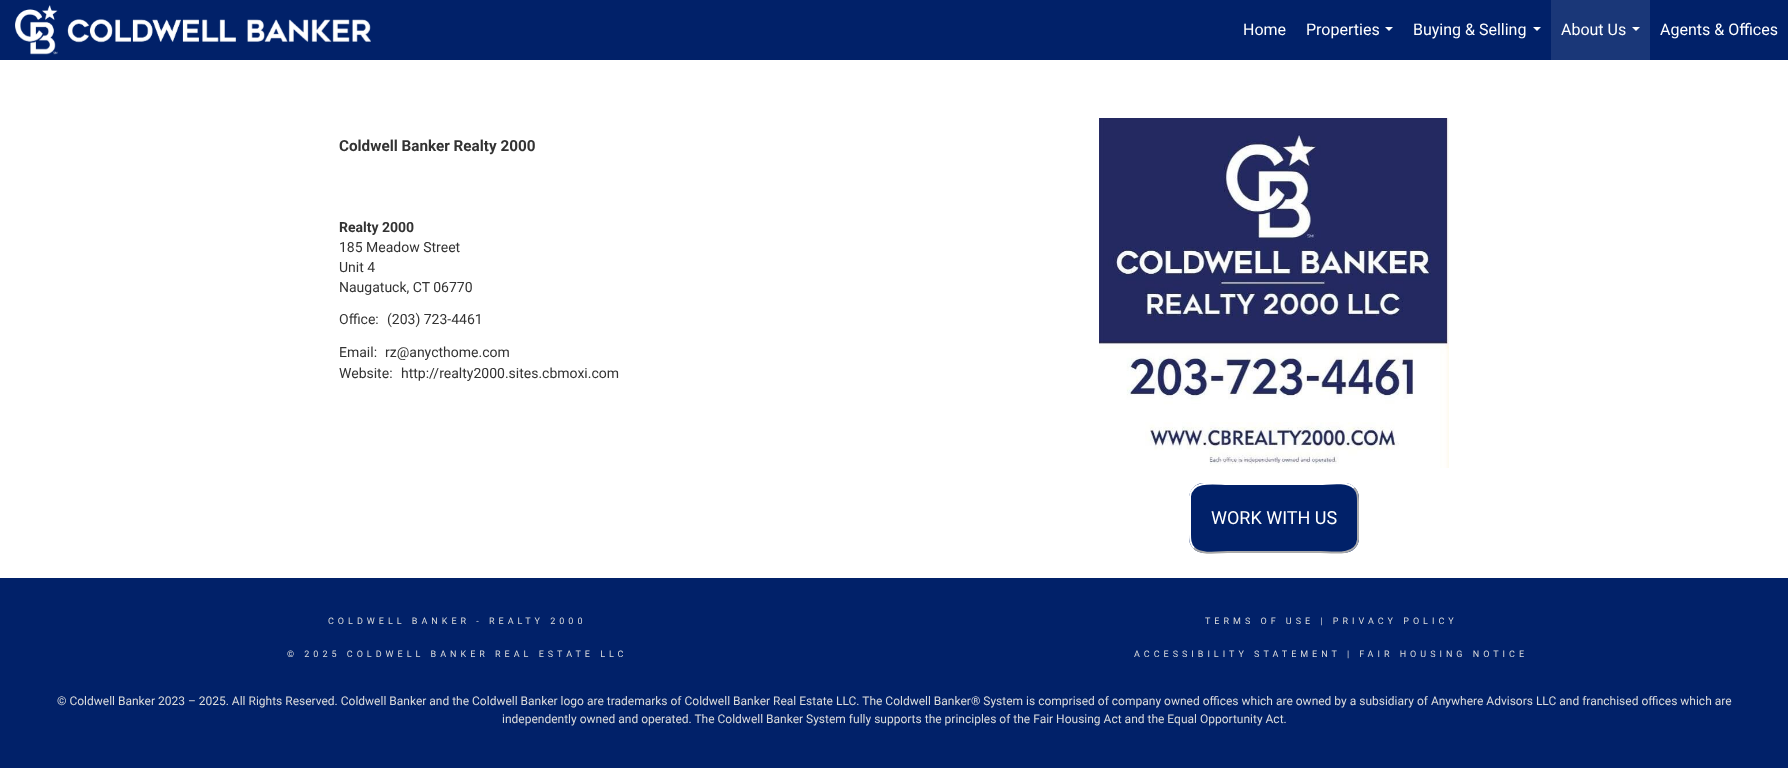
<svg xmlns="http://www.w3.org/2000/svg" width="1788" height="774">
<rect width="100%" height="100%" fill="#fff"/>
<rect width="1788" height="60" fill="#012169"/>
<image x="15" y="5" width="356" height="50" href="media/1.png"/>
<text x="1243" y="35" style="font-family:Roboto;font-size:16px;fill:#fff">Home</text>
<text x="1306" y="35" style="font-family:Roboto;font-size:16px;fill:#fff">Properties</text>
<path d="M1385 27h8l-4 4z" fill="#fff"/>
<text x="1413" y="35" style="font-family:Roboto;font-size:16px;fill:#fff">Buying &amp; Selling</text>
<path d="M1533 27h8l-4 4z" fill="#fff"/>
<rect x="1551" width="99" height="60" fill="#1a3778"/>
<text x="1561" y="35" style="font-family:Roboto;font-size:16px;fill:#fff">About Us</text>
<path d="M1632 27h8l-4 4z" fill="#fff"/>
<text x="1660" y="35" style="font-family:Roboto;font-size:16px;fill:#fff">Agents &amp; Offices</text>
<text x="339" y="151" style="font-family:Roboto;font-size:15.25px;font-weight:bold;fill:#333">Coldwell Banker Realty 2000</text>
<text x="339" y="232" style="font-family:Roboto;font-size:14px;font-weight:bold;fill:#333">Realty 2000</text>
<text x="339" y="252" style="font-family:Roboto;font-size:14px;fill:#333">185 Meadow Street</text>
<text x="339" y="272" style="font-family:Roboto;font-size:14px;fill:#333">Unit 4</text>
<text x="339" y="292" style="font-family:Roboto;font-size:14px;fill:#333">Naugatuck, CT 06770</text>
<text x="339" y="324" style="font-family:Roboto;font-size:14px;fill:#333">Office:</text>
<text x="387" y="324" style="font-family:Roboto;font-size:14px;fill:#333">(203) 723-4461</text>
<text x="339" y="357" style="font-family:Roboto;font-size:14px;fill:#333">Email:</text>
<text x="385" y="357" style="font-family:Roboto;font-size:14px;fill:#333">rz@anycthome.com</text>
<text x="339" y="378" style="font-family:Roboto;font-size:14px;fill:#333">Website:</text>
<text x="401" y="378" style="font-family:Roboto;font-size:14px;fill:#333">http://realty2000.sites.cbmoxi.com</text>
<image x="1099" y="118" width="350" height="350" href="media/2.png"/>
<rect x="1189" y="483" width="170" height="70" rx="15" fill="#012169"/>
<path d="M1354 488c4.5 4.5 4 10.5 4 16.5v35c-2 17.5-27 12.5-37.5 12.5h-93c-7 0-26 3.5-33.5-4" fill="none" stroke="#aaa" stroke-width="2"/>
<path d="M1194 548c-4.5-4.5-4-10.5-4-16.5v-35c2-17.5 27-12.5 37.5-12.5h93c7 0 26-3.5 33.5 4" fill="none" stroke="#fff" stroke-width="2"/>
<text x="1211" y="524" style="font-family:Roboto;font-size:18px;fill:#fff">WORK WITH US</text>
<rect y="578" width="1788" height="190" fill="#012169"/>
<text x="328" y="624" style="font-family:Roboto;font-size:9px;letter-spacing:4px;fill:#dbdbdb">COLDWELL BANKER - REALTY 2000</text>
<text x="287" y="657" style="font-family:Roboto;font-size:9px;letter-spacing:4px;fill:#dbdbdb">© 2025 COLDWELL BANKER REAL ESTATE LLC</text>
<text x="1205" y="624" style="font-family:Roboto;font-size:9px;letter-spacing:4px;fill:#dbdbdb">TERMS OF USE | PRIVACY POLICY</text>
<text x="1134" y="657" style="font-family:Roboto;font-size:9px;letter-spacing:4px;fill:#dbdbdb">ACCESSIBILITY STATEMENT | FAIR HOUSING NOTICE</text>
<text x="57" y="705" style="font-family:Roboto;font-size:12px;fill:#dbdbdb">© Coldwell Banker 2023 – 2025. All Rights Reserved. Coldwell Banker and the Coldwell Banker logo are trademarks of Coldwell Banker Real Estate LLC. The Coldwell Banker® System is comprised of company owned offices which are owned by a subsidiary of Anywhere Advisors LLC and franchised offices which are</text>
<text x="502" y="723" style="font-family:Roboto;font-size:12px;fill:#dbdbdb">independently owned and operated. The Coldwell Banker System fully supports the principles of the Fair Housing Act and the Equal Opportunity Act.</text>
</svg>
